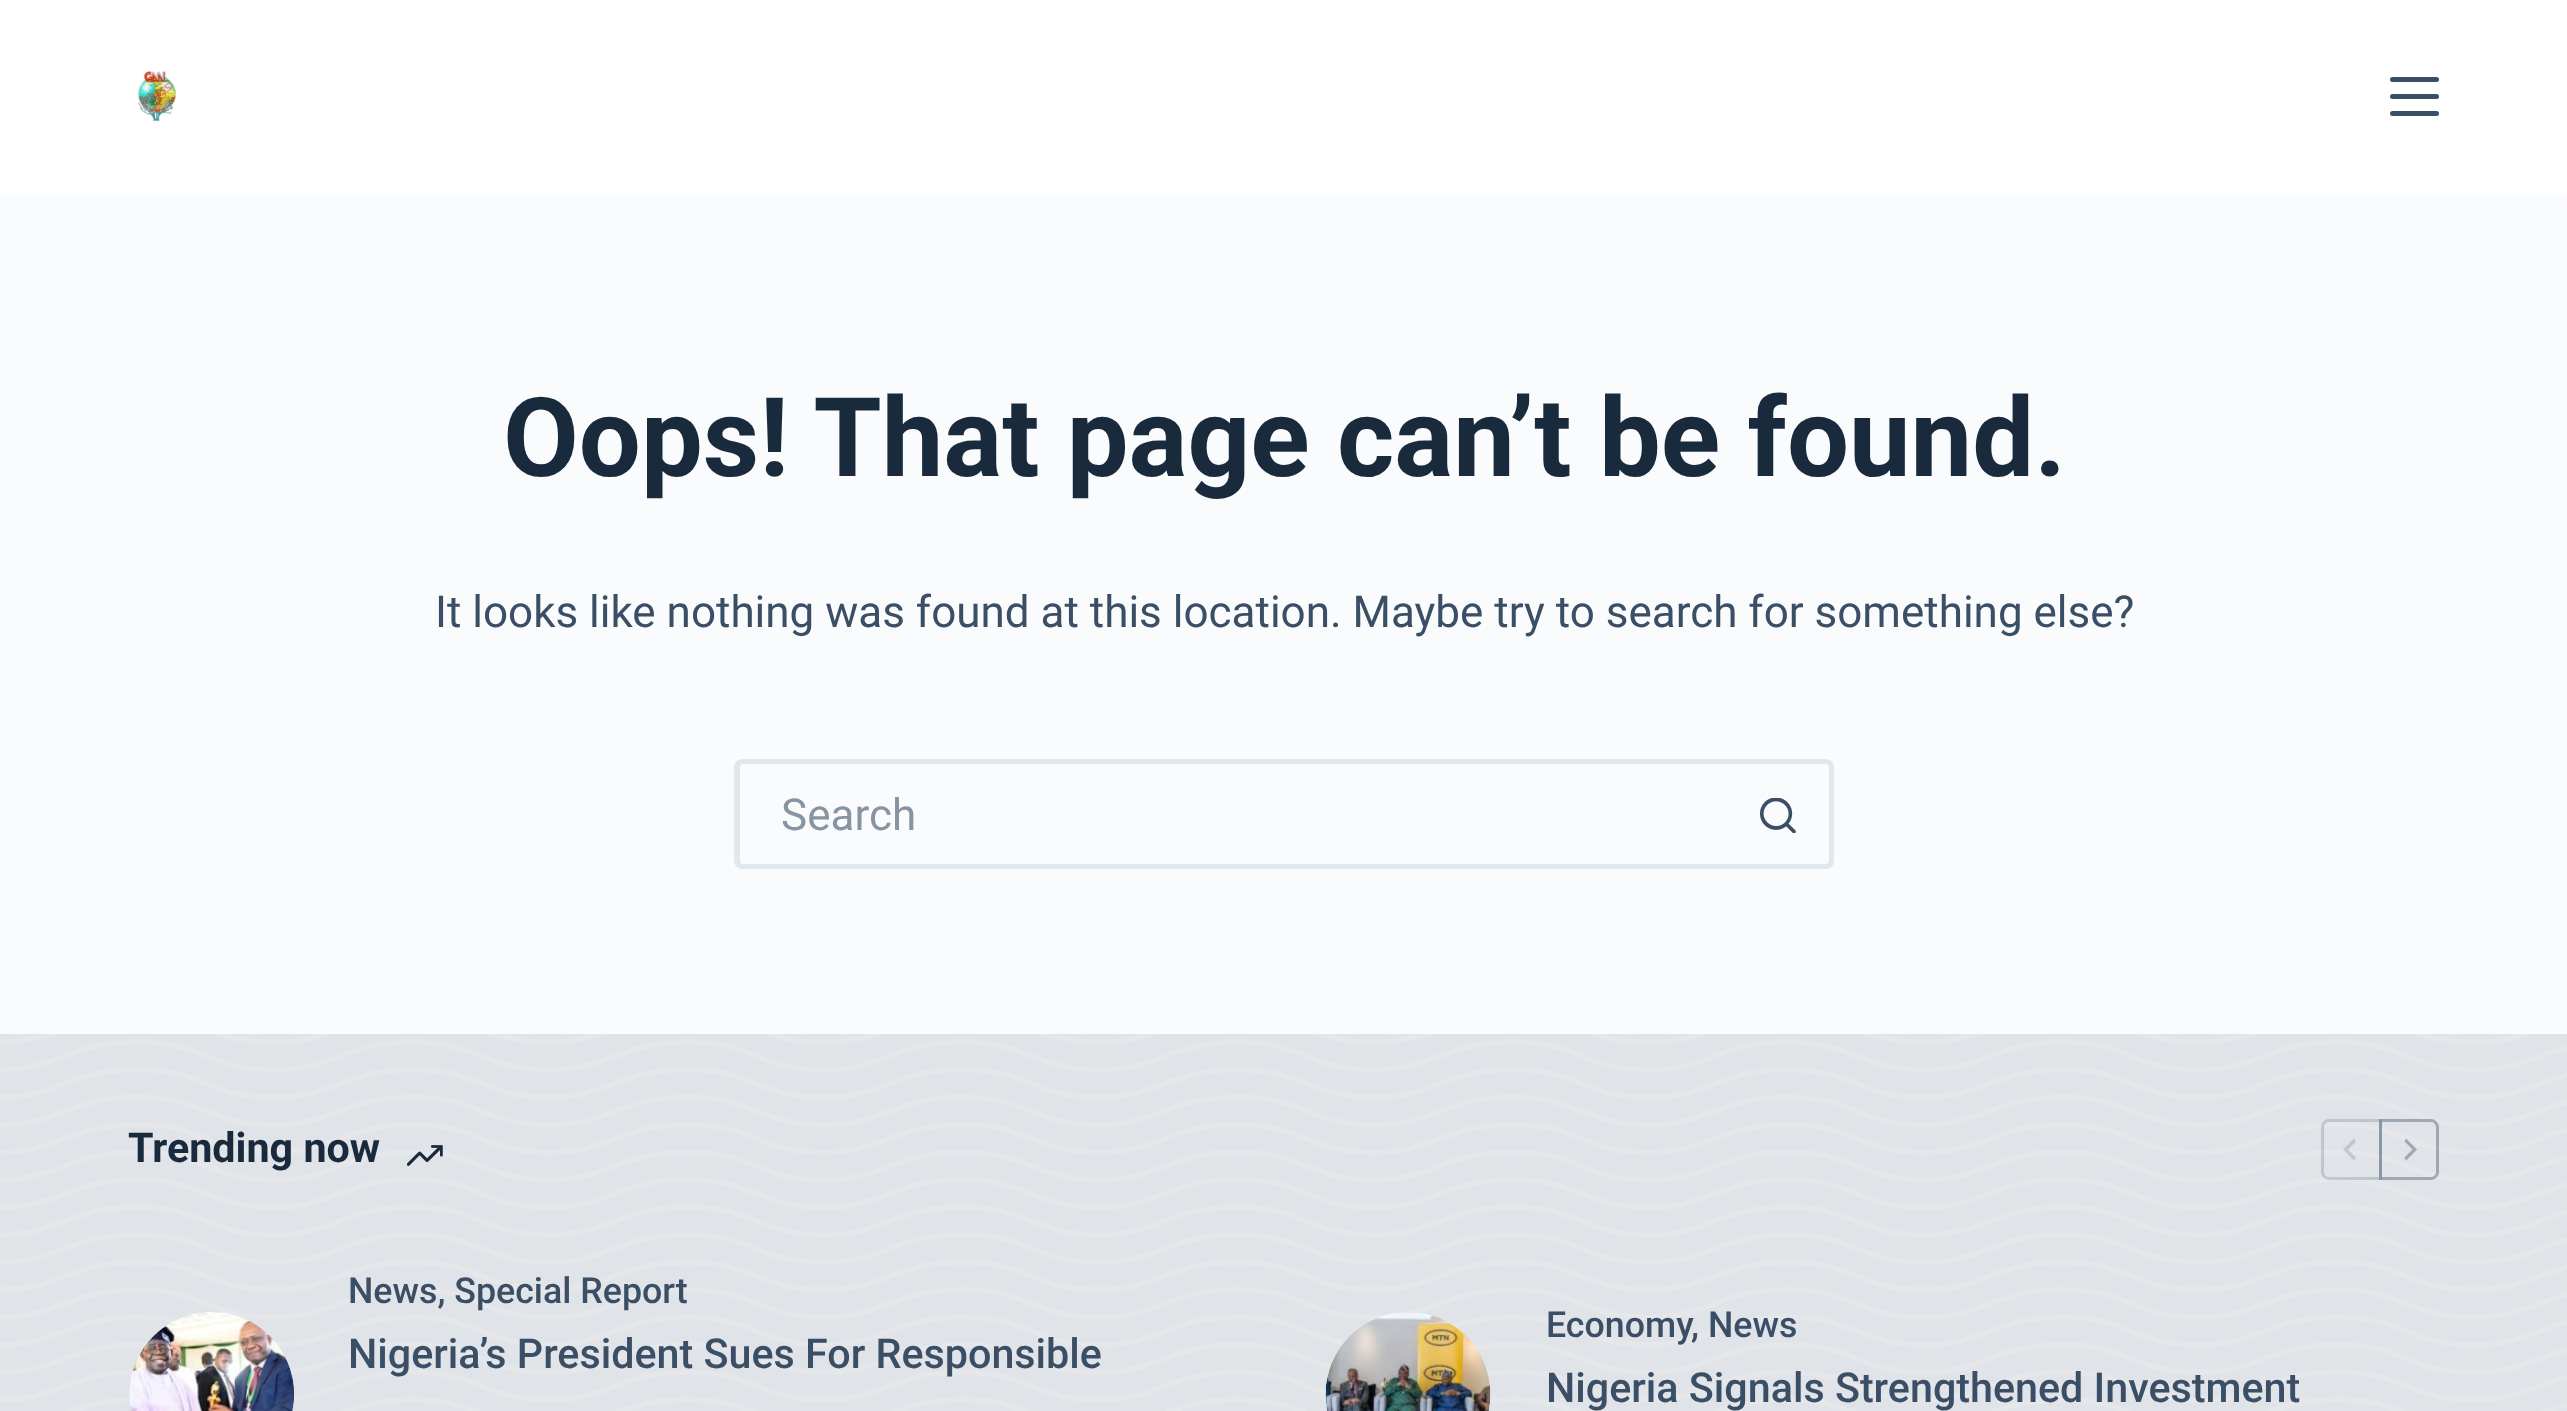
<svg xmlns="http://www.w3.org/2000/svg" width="2567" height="1411">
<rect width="100%" height="100%" fill="#fafbfc"/>
<rect width="2567" height="193" fill="#fff"/>
<image x="137" y="71" width="39" height="51" href="media/1.png"/>
<rect x="2390" y="77" width="49" height="5" rx="2.5" fill="#3a4f66"/>
<rect x="2390" y="94" width="49" height="5" rx="2.5" fill="#3a4f66"/>
<rect x="2390" y="111" width="49" height="5" rx="2.5" fill="#3a4f66"/>
<text x="503" y="476" style="font-family:Roboto;font-size:110px;font-weight:bold;fill:#192a3d">Oops! That page can’t be found.</text>
<text x="435" y="627" style="font-family:Roboto;font-size:44px;fill:#3a4f66">It looks like nothing was found at this location. Maybe try to search for something else?</text>
<path d="M742 759h982v110h-982c-4 0-8-4-8-8v-94c0-4 4-8 8-8zm0 5h982v100h-982c-1 0-2-2-2-3v-94c0-1 1-3 2-3z" fill="#e1e8ed" fill-rule="evenodd"/>
<text x="781" y="830" style="font-family:Roboto;font-size:44px;fill:#8794a2">Search</text>
<path d="M1724 759h102c5 0 8 4 8 8v94c0 4-3 8-8 8h-102zm0 5h102c2 0 3 2 3 3v94c0 1-1 3-3 3h-102z" fill="#e1e8ed" fill-rule="evenodd"/>
<image x="1760" y="798" width="36" height="35" href="media/2.png"/>
<rect y="1034" width="2567" height="377" fill="#e0e3e8"/>
<image x="0" y="1034" width="2567" height="377" href="media/3.png"/>
<text x="128" y="1162" style="font-family:Roboto;font-size:41.25px;font-weight:bold;fill:#192a3d">Trending now</text>
<image x="407" y="1145" width="36" height="21" href="media/4.png"/>
<path d="M2329 1120.5h51.5v58h-51.5c-3.5 0-6.5-3-6.5-6.5v-45c0-3.5 3-6.5 6.5-6.5z" fill="none" stroke="#3a4f6633" stroke-width="3"/>
<path d="M2354 1160.5l-11-11l11-11l2 3l-8 8l8 8z" fill="#3a4f6633"/>
<path d="M2380.5 1120.5h50.5c3.5 0 6.5 3 6.5 6.5v45c0 3.5-3 6.5-6.5 6.5h-50.5z" fill="none" stroke="#3a4f6666" stroke-width="3"/>
<path d="M2404.5 1157.5l8-8l-8-8l1.5-3l11 11l-11 11z" fill="#3a4f6666"/>
<image x="129" y="1312" width="165" height="99" href="media/5.png"/>
<text x="348" y="1303" style="font-family:Roboto;font-size:35.75px;font-weight:500;fill:#3a4f66">News, Special Report</text>
<text x="348" y="1368" style="font-family:Roboto;font-size:41.25px;font-weight:500;fill:#3a4f66">Nigeria’s President Sues For Responsible</text>
<image x="1325" y="1312" width="166" height="99" href="media/6.png"/>
<text x="1546" y="1337" style="font-family:Roboto;font-size:35.75px;font-weight:500;fill:#3a4f66">Economy</text>
<text x="1691" y="1337" style="font-family:Roboto;font-size:35.75px;font-weight:500;fill:#3a4f66">, News</text>
<text x="1546" y="1402" style="font-family:Roboto;font-size:41.25px;font-weight:500;fill:#3a4f66">Nigeria Signals Strengthened Investment</text>
</svg>
